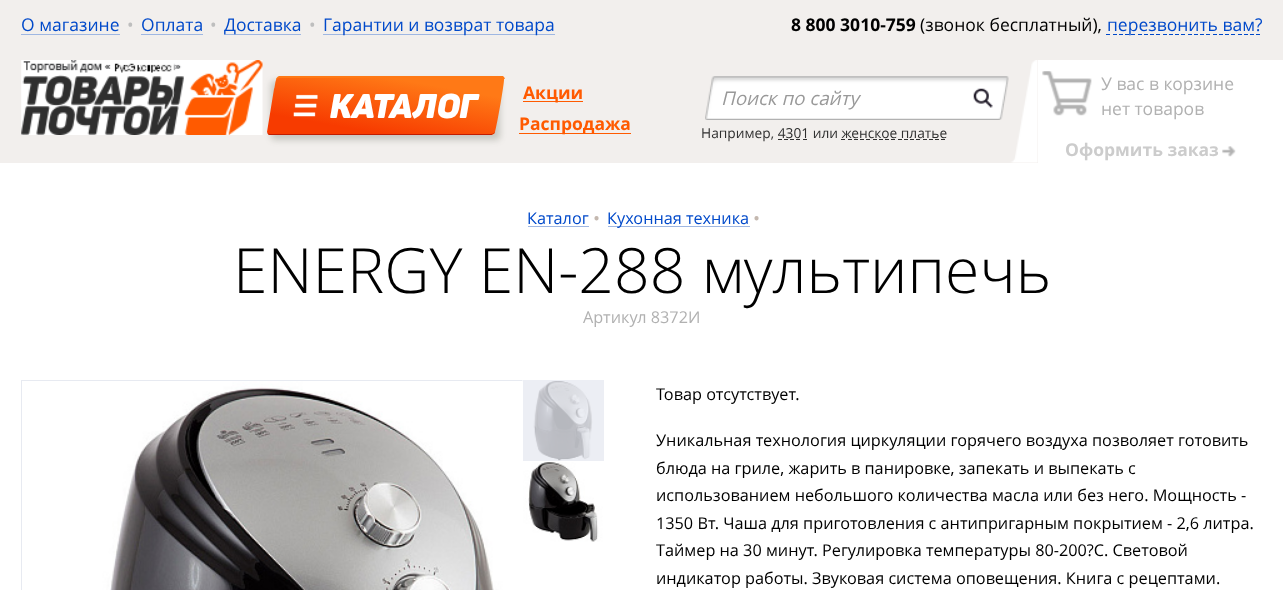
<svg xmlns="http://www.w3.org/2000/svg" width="1283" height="590">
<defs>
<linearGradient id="g1" gradientUnits="userSpaceOnUse" x1="381" y1="134" x2="391" y2="78"><stop offset="0" stop-color="#f73b00"/><stop offset="1" stop-color="#ff7916"/></linearGradient>
<linearGradient id="g2" gradientUnits="userSpaceOnUse" x1="371" y1="190" x2="381" y2="134"><stop offset="0" stop-color="#f73b00"/><stop offset="1" stop-color="#ff7916"/></linearGradient>
</defs>
<rect width="100%" height="100%" fill="#fff"/>
<rect width="1283" height="163" fill="#f2efed"/>
<text x="21" y="31" style="font-family:Open Sans;font-size:17.5px;fill:#0049ca">О магазине</text>
<rect x="21" y="34" width="99" height="1" fill="#9fb7e2"/>
<text x="127" y="31" style="font-family:Open Sans;font-size:17.5px;fill:#bebebe">•</text>
<text x="141" y="31" style="font-family:Open Sans;font-size:17.5px;fill:#0049ca">Оплата</text>
<rect x="141" y="34" width="62" height="1" fill="#9fb7e2"/>
<text x="210" y="31" style="font-family:Open Sans;font-size:17.5px;fill:#bebebe">•</text>
<rect x="224" y="34" width="77" height="1" fill="#9fb7e2"/>
<text x="224" y="31" style="font-family:Open Sans;font-size:17.5px;fill:#0049ca">Доставка</text>
<text x="309" y="31" style="font-family:Open Sans;font-size:17.5px;fill:#bebebe">•</text>
<rect x="323" y="34" width="232" height="1" fill="#9fb7e2"/>
<text x="323" y="31" style="font-family:Open Sans;font-size:17.5px;fill:#0049ca">Гарантии и возврат товара</text>
<text x="791" y="31" style="font-family:Open Sans;font-size:17.5px;font-weight:bold;fill:#000">8 800 3010-759</text>
<text x="920" y="31" style="font-family:Open Sans;font-size:17.5px;fill:#000">(звонок бесплатный),</text>
<image x="1106" y="34" width="154" height="1" href="media/1.png"/>
<text x="1107" y="31" style="font-family:Open Sans;font-size:17.5px;fill:#0049ca">перезвонить вам?</text>
<image x="21" y="60" width="242" height="75" href="media/2.png"/>
<rect x="271" y="81" width="229" height="59" rx="4" fill="#49513d40" filter="blur(3px)"/>
<path d="M268 134l-1-2l7-43c1-1 1-9 3-11h227c1 2-7 47-9 54l-1 2z" fill="url(#g1)"/>
<path d="M494 134l-3 1h-222l-1-1z" fill="url(#g2)"/>
<path d="M280 78c-2 0-4 1-4 2c0-2 1-3 3-4h224c1 1 2 2 2 3c-1 0-2-1-4-1z" fill="#ff7916"/>
<path d="M270 135h221c1 0 4-2 4-3c-1 1-2 2-4 2h-221c-2 0-3-1-3-3c0 2 1 4 3 4z" fill="#c21d00"/>
<image x="293" y="94" width="25" height="23" href="media/3.png"/>
<text x="330" y="118" style="font-family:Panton;font-size:33.75px;font-style:italic;fill:#fff">КАТАЛОГ</text>
<rect x="523" y="101" width="60" height="1" fill="#ff5a00"/>
<text x="523" y="99" style="font-family:Open Sans;font-size:17.5px;font-weight:bold;fill:#ff5a00">Акции</text>
<rect x="519" y="133" width="112" height="1" fill="#ff5a00"/>
<text x="519" y="130" style="font-family:Open Sans;font-size:17.5px;font-weight:bold;fill:#ff5a00">Распродажа</text>
<image x="705" y="76" width="304" height="44" href="media/4.png"/>
<text x="721" y="105" style="font-family:Open Sans;font-size:18.75px;font-style:italic;fill:#999">Поиск по сайту</text>
<image x="973" y="88" width="20" height="20" href="media/5.png"/>
<text x="701" y="138" style="font-family:Open Sans;font-size:13.75px;fill:#2f2f2f">Например, 4301 или женское платье</text>
<rect x="778" y="139" width="4" height="1" fill="#2f2f2f"/>
<rect x="784" y="139" width="4" height="1" fill="#2f2f2f"/>
<rect x="790" y="139" width="4" height="1" fill="#2f2f2f"/>
<rect x="796" y="139" width="4" height="1" fill="#2f2f2f"/>
<rect x="803" y="139" width="4" height="1" fill="#2f2f2f"/>
<rect x="841" y="139" width="4" height="1" fill="#2f2f2f"/>
<rect x="848" y="139" width="4" height="1" fill="#2f2f2f"/>
<rect x="854" y="139" width="4" height="1" fill="#2f2f2f"/>
<rect x="860" y="139" width="4" height="1" fill="#2f2f2f"/>
<rect x="866" y="139" width="4" height="1" fill="#2f2f2f"/>
<rect x="873" y="139" width="4" height="1" fill="#2f2f2f"/>
<rect x="879" y="139" width="4" height="1" fill="#2f2f2f"/>
<rect x="885" y="139" width="4" height="1" fill="#2f2f2f"/>
<rect x="891" y="139" width="4" height="1" fill="#2f2f2f"/>
<rect x="898" y="139" width="4" height="1" fill="#2f2f2f"/>
<rect x="904" y="139" width="4" height="1" fill="#2f2f2f"/>
<rect x="910" y="139" width="4" height="1" fill="#2f2f2f"/>
<rect x="916" y="139" width="4" height="1" fill="#2f2f2f"/>
<rect x="923" y="139" width="4" height="1" fill="#2f2f2f"/>
<rect x="929" y="139" width="4" height="1" fill="#2f2f2f"/>
<rect x="935" y="139" width="4" height="1" fill="#2f2f2f"/>
<rect x="941" y="139" width="4" height="1" fill="#2f2f2f"/>
<image x="1008" y="60" width="30" height="103" href="media/6.png"/>
<rect x="1038" y="60" width="245" height="103" fill="#fff"/>
<image x="1042" y="71" width="50" height="45" href="media/7.png"/>
<text x="1101" y="90" style="font-family:Open Sans;font-size:17.5px;fill:#b1b1b1">У вас в корзине</text>
<text x="1101" y="115" style="font-family:Open Sans;font-size:17.5px;fill:#b1b1b1">нет товаров</text>
<text x="1065" y="156" style="font-family:Open Sans;font-size:17.5px;font-weight:bold;fill:#ccc">Оформить заказ</text>
<image x="1222" y="146" width="14" height="11" href="media/8.png"/>
<text x="527" y="224" style="font-family:Open Sans;font-size:16.25px;fill:#0049ca">Каталог</text>
<rect x="528" y="226" width="61" height="1" fill="#9fb7e2"/>
<text x="593" y="225" style="font-family:Open Sans;font-size:18.75px;fill:#c4b8af">•</text>
<rect x="608" y="226" width="142" height="1" fill="#9fb7e2"/>
<text x="607" y="224" style="font-family:Open Sans;font-size:16.25px;fill:#0049ca">Кухонная техника</text>
<text x="753" y="225" style="font-family:Open Sans;font-size:18.75px;fill:#c4b8af">•</text>
<text x="233" y="293" style="font-family:Open Sans;font-size:62.5px;font-weight:300;fill:#000">ENERGY EN-288 мультипечь</text>
<text x="583" y="323" style="font-family:Open Sans;font-size:16.25px;fill:#b1b1b1">Артикул 8372И</text>
<rect x="21.5" y="380.5" width="501" height="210" fill="none" stroke="#e7eaf1"/>
<image x="23" y="381" width="560" height="209" href="media/9.png"/>
<image x="522" y="380" width="82" height="81" href="media/10.png"/>
<rect x="523" y="380" width="81" height="81" fill="#e7eaf1c9"/>
<image x="523" y="462" width="81" height="80" href="media/11.png"/>
<text x="656" y="400" style="font-family:Open Sans;font-size:16.25px;fill:#000">Товар отсутствует.</text>
<text x="656" y="446" style="font-family:Open Sans;font-size:16.25px;fill:#000">Уникальная технология циркуляции горячего воздуха позволяет готовить</text>
<text x="656" y="474" style="font-family:Open Sans;font-size:16.25px;fill:#000">блюда на гриле, жарить в панировке, запекать и выпекать с</text>
<text x="656" y="501" style="font-family:Open Sans;font-size:16.25px;fill:#000">использованием небольшого количества масла или без него. Мощность -</text>
<text x="656" y="529" style="font-family:Open Sans;font-size:16.25px;fill:#000">1350 Вт. Чаша для приготовления с антипригарным покрытием - 2,6 литра.</text>
<text x="656" y="556" style="font-family:Open Sans;font-size:16.25px;fill:#000">Таймер на 30 минут. Регулировка температуры 80-200?С. Световой</text>
<text x="656" y="584" style="font-family:Open Sans;font-size:16.25px;fill:#000">индикатор работы. Звуковая система оповещения. Книга с рецептами.</text>
</svg>
